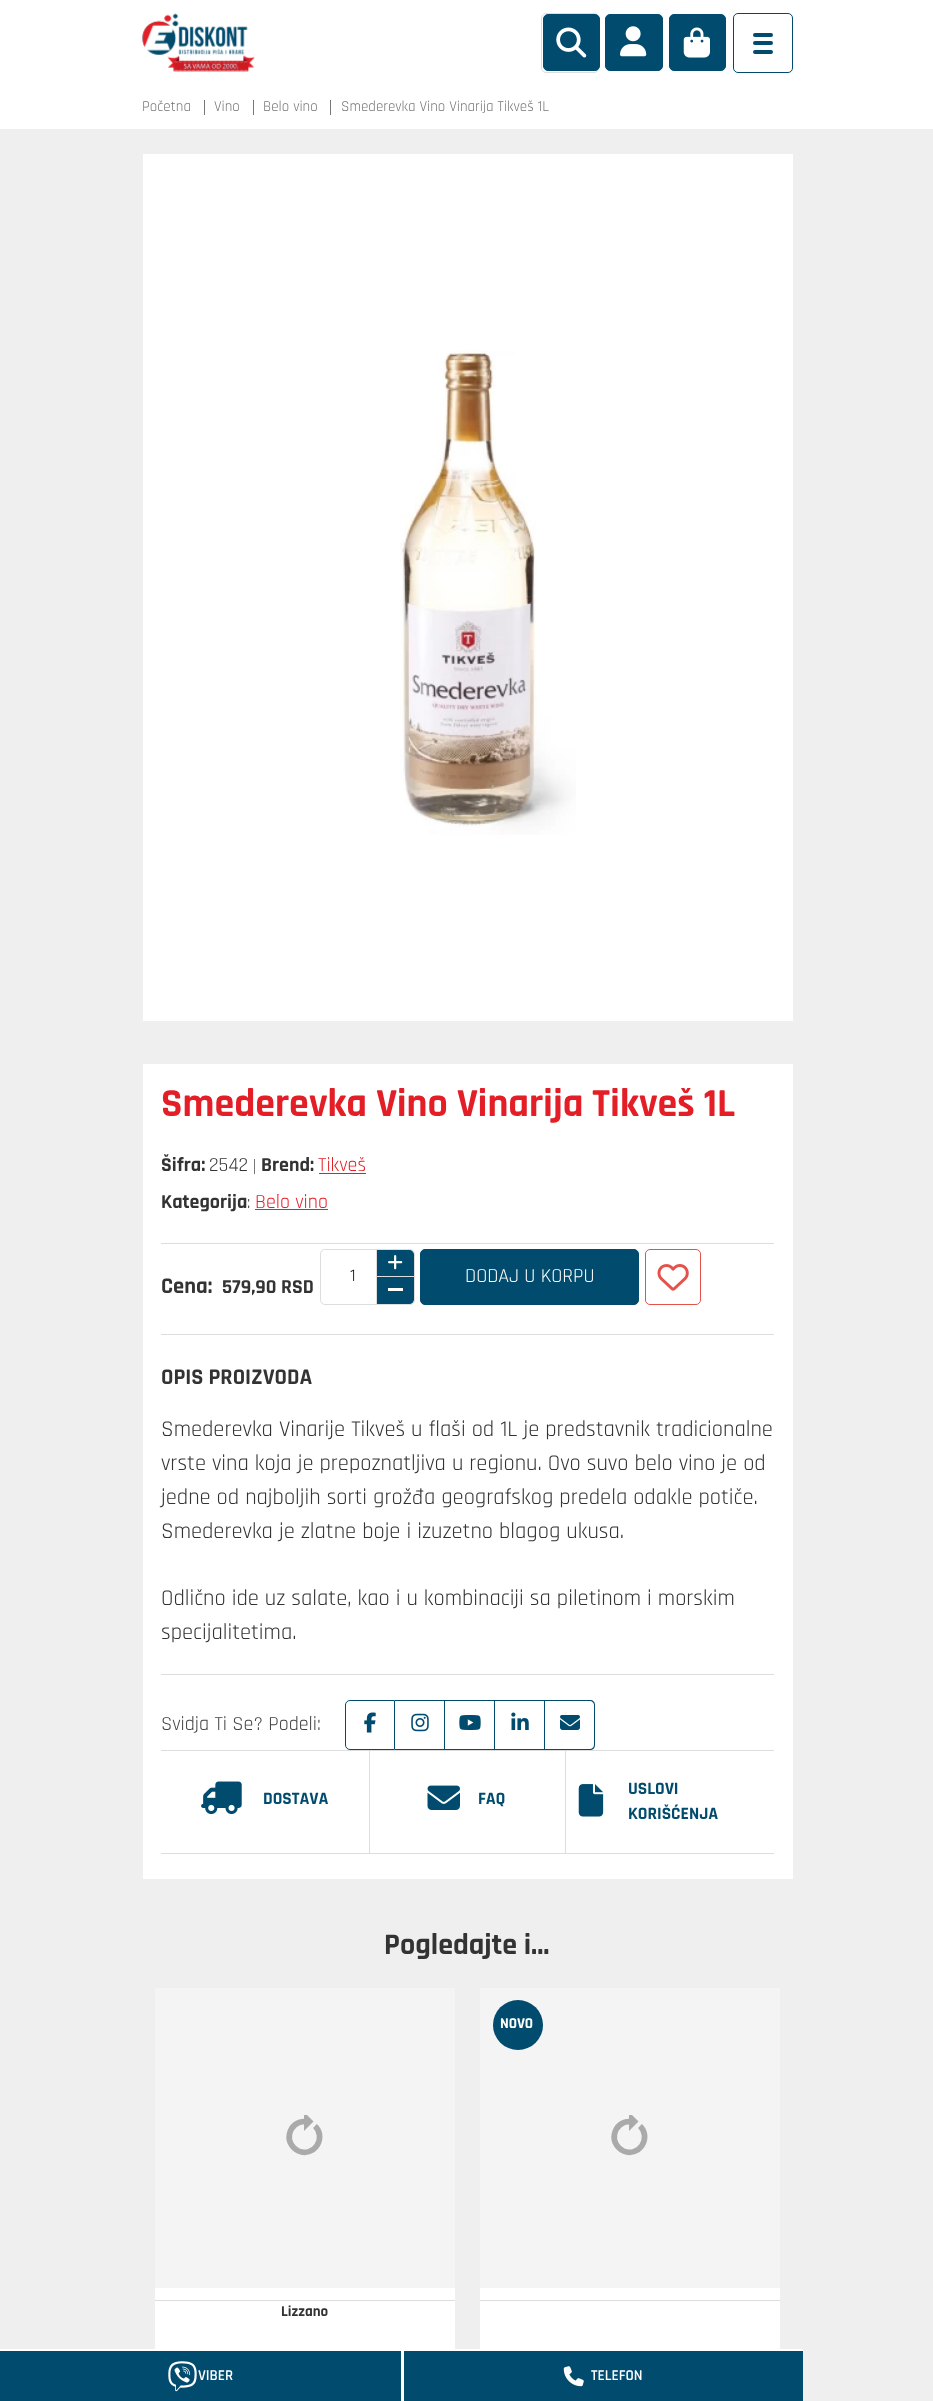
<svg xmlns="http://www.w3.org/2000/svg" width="933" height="2401">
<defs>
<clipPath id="clip1"><rect x="608" y="2115" width="43" height="44"/></clipPath>
<clipPath id="clip2"><rect x="283" y="2115" width="43" height="44"/></clipPath>
</defs>
<rect width="100%" height="100%" fill="#efefef"/>
<rect width="933" height="129" fill="#fff"/>
<image x="142" y="13" width="113" height="59" href="media/1.png"/>
<rect x="541.5" y="13.5" width="57" height="59" rx="4.5" fill="none" stroke="#ddd"/>
<rect x="543.5" y="14.5" width="56" height="56" rx="4.5" fill="#014b6e" stroke="#014b6e"/>
<image x="556" y="27" width="31" height="31" href="media/2.png"/>
<rect x="605.5" y="14.5" width="57" height="56" rx="4.5" fill="#014b6e" stroke="#014b6e"/>
<image x="620" y="26" width="27" height="31" href="media/3.png"/>
<rect x="669.5" y="14.5" width="56" height="56" rx="4.5" fill="#014b6e" stroke="#014b6e"/>
<image x="683" y="27" width="27" height="31" href="media/4.png"/>
<rect x="733.5" y="13.5" width="59" height="59" rx="4.5" fill="none" stroke="#014b6e"/>
<rect x="753" y="33" width="20" height="4" rx="2" fill="#014b6e"/>
<rect x="753" y="41" width="20" height="4" rx="2" fill="#014b6e"/>
<rect x="753" y="50" width="20" height="4" rx="2" fill="#014b6e"/>
<text x="142" y="111" style="font-family:Rajdhani;font-size:15px;fill:#777">Početna</text>
<rect x="204" y="100" width="1" height="15" fill="#777"/>
<text x="214" y="111" style="font-family:Rajdhani;font-size:15px;fill:#777">Vino</text>
<rect x="253" y="100" width="1" height="15" fill="#777"/>
<text x="263" y="111" style="font-family:Rajdhani;font-size:15px;fill:#777">Belo vino</text>
<rect x="330" y="100" width="1" height="15" fill="#777"/>
<text x="341" y="111" style="font-family:Rajdhani;font-size:15px;fill:#777">Smederevka Vino Vinarija Tikveš 1L</text>
<rect x="143" y="154" width="650" height="867" fill="#fff"/>
<image x="400" y="350" width="176" height="485" href="media/5.png"/>
<rect x="143" y="1064" width="650" height="815" fill="#fff"/>
<text x="161" y="1116" style="font-family:Rajdhani;font-size:40px;font-weight:bold;fill:#e31e26">Smederevka Vino Vinarija Tikveš 1L</text>
<text x="161" y="1171" style="font-family:Rajdhani;font-size:20px;font-weight:bold;fill:#333">Šifra:</text>
<text x="209" y="1171" style="font-family:Rajdhani;font-size:20px;fill:#333">2542</text>
<rect x="254" y="1159" width="1" height="15" fill="#777"/>
<text x="261" y="1171" style="font-family:Rajdhani;font-size:20px;font-weight:bold;fill:#333">Brend:</text>
<text x="318" y="1171" style="font-family:Rajdhani;font-size:20px;fill:#e31e26">Tikveš</text>
<rect x="319" y="1173" width="47" height="1" fill="#e31e26"/>
<rect x="161" y="1243" width="613" height="1" fill="#ddd"/>
<text x="161" y="1208" style="font-family:Rajdhani;font-size:20px;font-weight:bold;fill:#333">Kategorija</text>
<text x="247" y="1208" style="font-family:Rajdhani;font-size:17.5px;fill:#333">:</text>
<text x="255" y="1208" style="font-family:Rajdhani;font-size:20px;fill:#e31e26">Belo vino</text>
<rect x="255" y="1209" width="73" height="1" fill="#e31e26"/>
<rect x="320.5" y="1249.5" width="94" height="55" rx="4.5" fill="none" stroke="#ddd"/>
<rect x="321" y="1250" width="64" height="54" rx="5" fill="#fff"/>
<text x="350" y="1281" style="font-family:Rajdhani;font-size:17.5px;fill:#000">1</text>
<path d="M376 1250h33c3 0 5 2 5 5v23h-38z" fill="#014b6e"/>
<rect x="376" y="1250" width="1" height="28" fill="#ddd"/>
<image x="388" y="1255" width="15" height="15" href="media/6.png"/>
<path d="M376 1276h38v23c0 3-2 5-5 5h-33z" fill="#014b6e"/>
<rect x="376" y="1276" width="38" height="1" fill="#ddd"/>
<rect x="376" y="1276" width="1" height="28" fill="#ddd"/>
<rect x="388" y="1288" width="15" height="3" fill="#fff"/>
<rect x="420.5" y="1249.5" width="218" height="55" rx="4.5" fill="#014b6e" stroke="#014b6e"/>
<text x="465" y="1282" style="font-family:Rajdhani;font-size:20px;fill:#fff">DODAJ U KORPU</text>
<rect x="645.5" y="1249.5" width="55" height="55" rx="4.5" fill="none" stroke="#e5514b"/>
<image x="657" y="1264" width="32" height="27" href="media/7.png"/>
<text x="161" y="1293" style="font-family:Rajdhani;font-size:22.5px;font-weight:bold;fill:#333">Cena:</text>
<text x="222" y="1293" style="font-family:Rajdhani;font-size:20px;font-weight:bold;fill:#333">579,90 RSD</text>
<rect x="161" y="1334" width="613" height="1" fill="#ddd"/>
<rect x="161" y="1674" width="613" height="1" fill="#ddd"/>
<text x="161" y="1384" style="font-family:Rajdhani;font-size:22.5px;font-weight:bold;fill:#333">OPIS PROIZVODA</text>
<text x="161" y="1436" style="font-family:Rajdhani;font-size:22.5px;fill:#333">Smederevka Vinarije Tikveš u flaši od 1L je predstavnik tradicionalne</text>
<text x="161" y="1470" style="font-family:Rajdhani;font-size:22.5px;fill:#333">vrste vina koja je prepoznatljiva u regionu. Ovo suvo belo vino je od</text>
<text x="161" y="1504" style="font-family:Rajdhani;font-size:22.5px;fill:#333">jedne od najboljih sorti grožđa geografskog predela odakle potiče.</text>
<text x="161" y="1538" style="font-family:Rajdhani;font-size:22.5px;fill:#333">Smederevka je zlatne boje i izuzetno blagog ukusa.</text>
<text x="161" y="1605" style="font-family:Rajdhani;font-size:22.5px;fill:#333">Odlično ide uz salate, kao i u kombinaciji sa piletinom i morskim</text>
<text x="161" y="1639" style="font-family:Rajdhani;font-size:22.5px;fill:#333">specijalitetima.</text>
<text x="161" y="1730" style="font-family:Rajdhani;font-size:20px;fill:#444">Svidja Ti Se? Podeli:</text>
<path d="M350 1700.5h44.5v49h-44.5c-2.5 0-4.5-2-4.5-4.5v-40c0-2.5 2-4.5 4.5-4.5z" fill="none" stroke="#014b6e"/>
<image x="364" y="1712" width="12" height="21" href="media/8.png"/>
<rect x="395" y="1700" width="150" height="1" fill="#014b6e"/>
<rect x="444" y="1700" width="1" height="50" fill="#014b6e"/>
<rect x="395" y="1749" width="50" height="1" fill="#014b6e"/>
<image x="411" y="1713" width="18" height="19" href="media/9.png"/>
<rect x="494" y="1700" width="1" height="50" fill="#014b6e"/>
<rect x="445" y="1749" width="50" height="1" fill="#014b6e"/>
<image x="459" y="1715" width="22" height="15" href="media/10.png"/>
<rect x="544" y="1700" width="1" height="50" fill="#014b6e"/>
<rect x="495" y="1749" width="50" height="1" fill="#014b6e"/>
<image x="511" y="1712" width="18" height="18" href="media/11.png"/>
<path d="M545 1700h45c3 0 5 2 5 5v40c0 3-2 5-5 5h-45zm0 1h45c2 0 4 2 4 4v40c0 2-2 4-4 4h-45z" fill="#014b6e" fill-rule="evenodd"/>
<image x="560" y="1715" width="20" height="15" href="media/12.png"/>
<rect x="161" y="1750" width="613" height="1" fill="#ddd"/>
<rect x="161" y="1853" width="613" height="1" fill="#ddd"/>
<rect x="369" y="1751" width="1" height="102" fill="#ddd"/>
<image x="201" y="1781" width="41" height="34" href="media/13.png"/>
<text x="263" y="1804" style="font-family:Rajdhani;font-size:17.5px;font-weight:bold;fill:#014b6e">DOSTAVA</text>
<rect x="565" y="1751" width="1" height="102" fill="#ddd"/>
<image x="427" y="1785" width="33" height="25" href="media/14.png"/>
<text x="478" y="1804" style="font-family:Rajdhani;font-size:17.5px;font-weight:bold;fill:#014b6e">FAQ</text>
<image x="578" y="1784" width="26" height="33" href="media/15.png"/>
<text x="628" y="1794" style="font-family:Rajdhani;font-size:17.5px;font-weight:bold;fill:#014b6e">USLOVI</text>
<text x="628" y="1819" style="font-family:Rajdhani;font-size:17.5px;font-weight:bold;fill:#014b6e">KORIŠĆENJA</text>
<text x="384" y="1954" style="font-family:Rajdhani;font-size:30px;font-weight:bold;fill:#333">Pogledajte i...</text>
<rect x="480" y="2288" width="300" height="61" fill="#fff"/>
<rect x="480" y="1988" width="300" height="300" fill="#f4f4f4"/>
<path d="M629.5 2121.5c-7.5 0-13.5 5-15 12.5c-1.5 7 2.5 14 9 17c7 3 14.5 .5 18.5-5.5c4-6 3.5-14.5-2-19.5" fill="none" stroke="#aaa" stroke-width="5.7"/>
<g clip-path="url(#clip1)">
<path d="M629 2112v19l9.5-9.5l-9.5-9.5" fill="#aaa"/>
</g>
<circle cx="518" cy="2025" r="25" fill="#014b6e"/>
<text x="500" y="2028" style="font-family:Rajdhani;font-size:15px;font-weight:bold;fill:#fff">NOVO</text>
<rect x="480" y="2300" width="300" height="1" fill="#ddd"/>
<rect x="155" y="2288" width="300" height="61" fill="#fff"/>
<rect x="155" y="1988" width="300" height="300" fill="#f4f4f4"/>
<path d="M304.5 2121.5c-7.5 0-13.5 5-15 12.5c-1.5 7 2.5 14 9 17c7 3 14.5 .5 18.5-5.5c4-6 3.5-14.5-2-19.5" fill="none" stroke="#aaa" stroke-width="5.7"/>
<g clip-path="url(#clip2)">
<path d="M304 2112v19l9.5-9.5l-9.5-9.5" fill="#aaa"/>
</g>
<rect x="155" y="2300" width="300" height="1" fill="#ddd"/>
<text x="281" y="2316" style="font-family:Rajdhani;font-size:15px;font-weight:bold;fill:#333">Lizzano</text>
<rect y="2349" width="803" height="2" fill="#fff"/>
<rect y="2351" width="401" height="50" fill="#014b6e"/>
<image x="168" y="2361" width="29" height="31" href="media/16.png"/>
<text x="198" y="2380" style="font-family:Rajdhani;font-size:15px;font-weight:600;fill:#fff">VIBER</text>
<rect x="404" y="2351" width="399" height="50" fill="#014b6e"/>
<rect x="401" y="2351" width="3" height="50" fill="#fff"/>
<image x="563" y="2366" width="21" height="21" href="media/17.png"/>
<text x="591" y="2380" style="font-family:Rajdhani;font-size:15px;font-weight:600;fill:#fff">TELEFON</text>
</svg>
